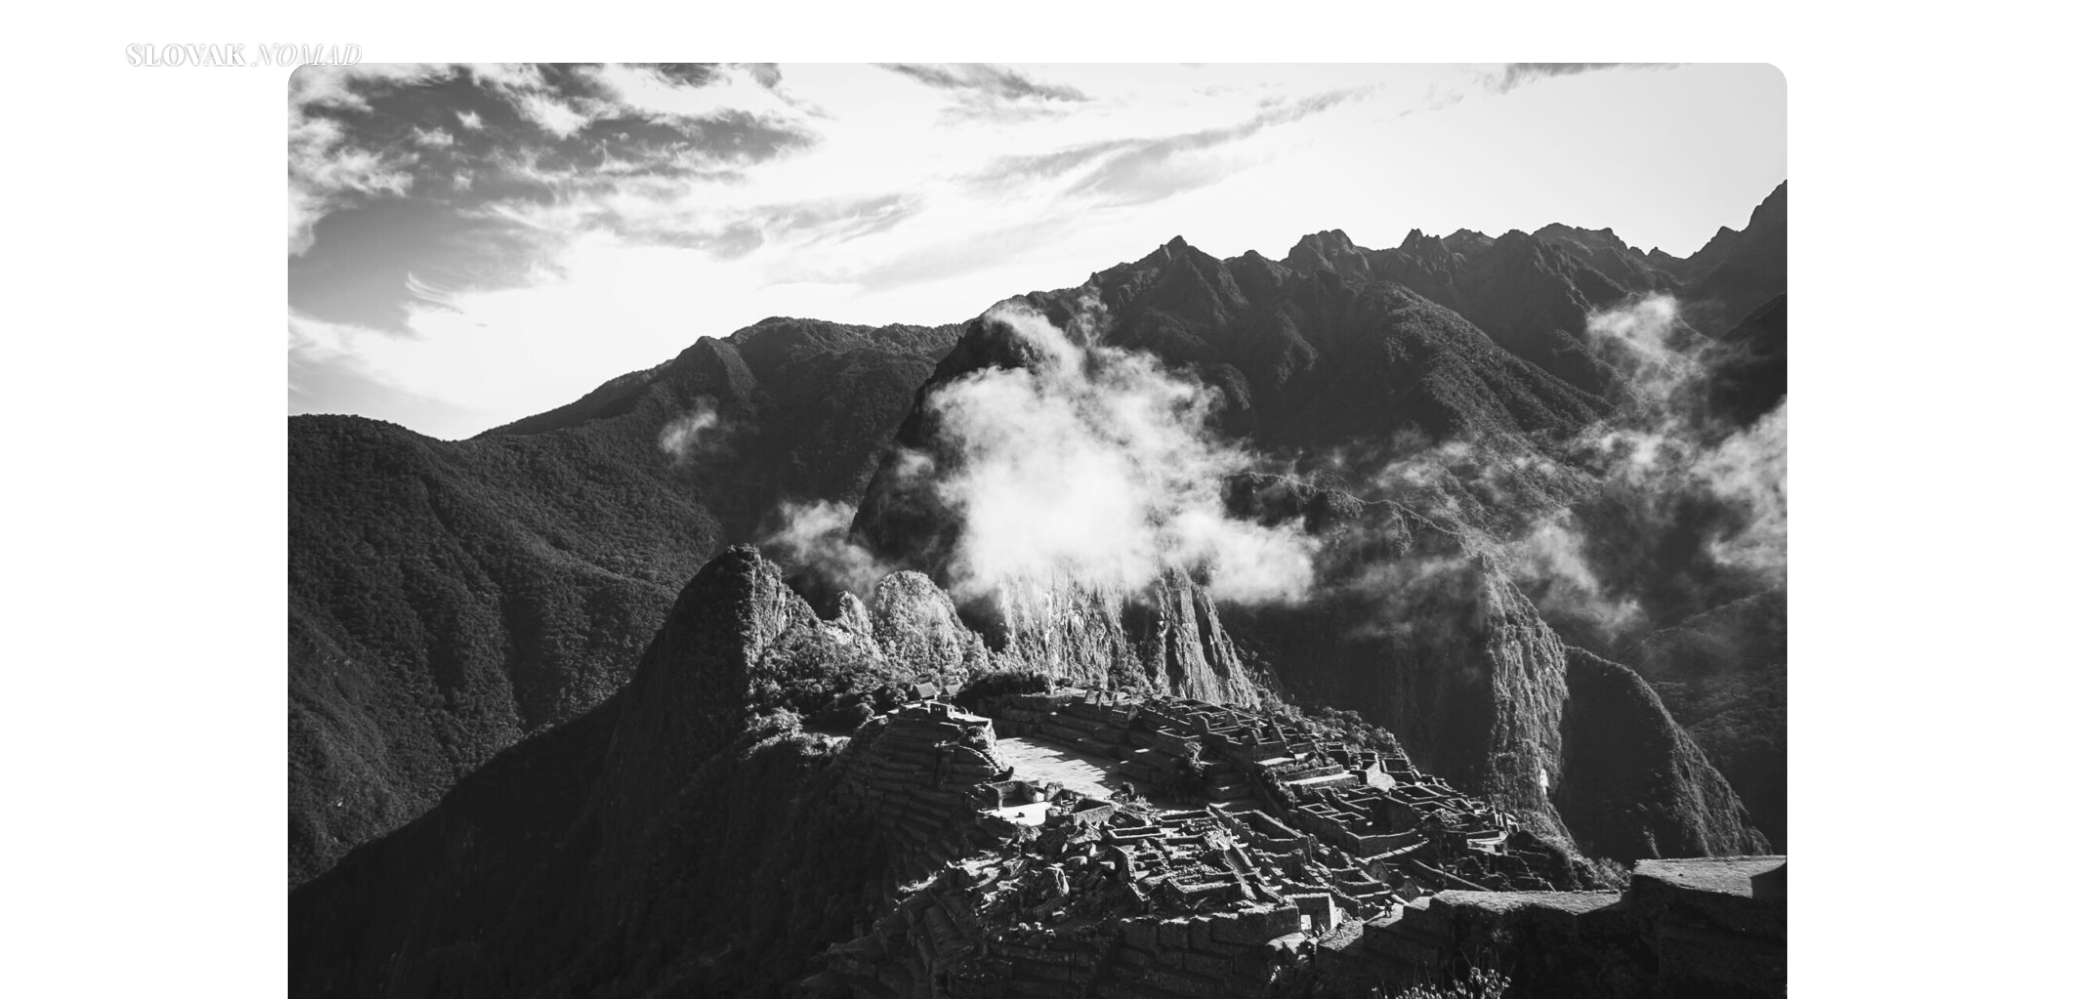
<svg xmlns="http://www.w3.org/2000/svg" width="2074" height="999">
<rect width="100%" height="100%" fill="#fff"/>
<image x="287" y="62" width="1501" height="937" href="media/2.png"/>
<image x="125" y="42" width="238" height="26" href="media/1.png"/>
</svg>
